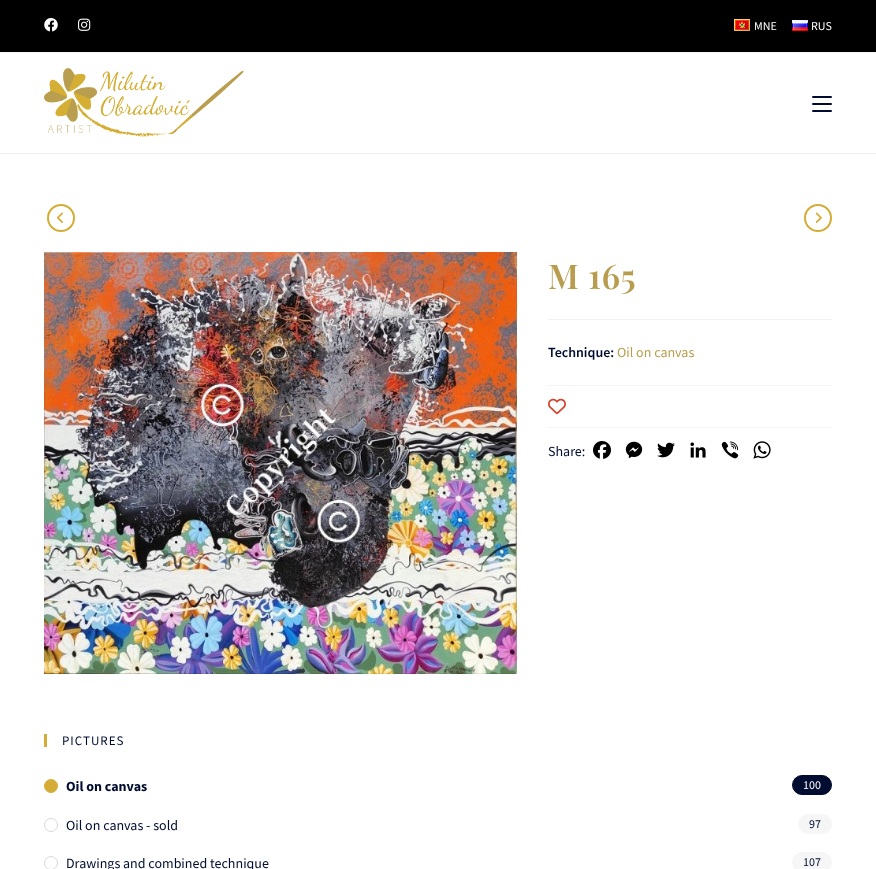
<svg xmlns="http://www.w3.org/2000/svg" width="876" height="869">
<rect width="100%" height="100%" fill="#fff"/>
<rect width="876" height="52" fill="#000"/>
<rect y="52" width="876" height="1" fill="#f5f5f5"/>
<image x="44" y="18" width="14" height="14" href="media/1.png"/>
<image x="78" y="18" width="13" height="13" href="media/2.png"/>
<image x="734" y="19" width="16" height="12" href="media/3.png"/>
<text x="754" y="30" style="font-family:Source Sans Pro;font-size:12px;fill:#fff">MNE</text>
<image x="792" y="20" width="16" height="11" href="media/4.png"/>
<text x="811" y="30" style="font-family:Source Sans Pro;font-size:12px;fill:#fff">RUS</text>
<rect y="153" width="876" height="1" fill="#f1f1f1"/>
<image x="44" y="68" width="200" height="69" href="media/5.png"/>
<rect x="812" y="103" width="20" height="2" rx="1" fill="#000c30"/>
<rect x="812" y="96" width="20" height="2" rx="1" fill="#000c30"/>
<rect x="812" y="110" width="20" height="2" rx="1" fill="#000c30"/>
<circle cx="61" cy="218" r="13" fill="none" stroke="#d5ad36" stroke-width="2"/>
<image x="56" y="212" width="7" height="11" href="media/6.png"/>
<circle cx="818" cy="218" r="13" fill="none" stroke="#d5ad36" stroke-width="2"/>
<image x="815" y="212" width="7" height="11" href="media/7.png"/>
<image x="44" y="252" width="473" height="422" href="media/8.png"/>
<rect x="548" y="319" width="284" height="1" fill="#f1f1f1"/>
<text x="548" y="289" style="font-family:Playfair Display;font-size:34px;font-weight:600;letter-spacing:0.5px;fill:#b89d4f">M 165</text>
<rect x="548" y="385" width="284" height="1" fill="#f5f5f5"/>
<text x="548" y="357" style="font-family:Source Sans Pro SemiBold;font-size:14px;font-weight:600;fill:#000c30">Technique:</text>
<text x="617" y="357" style="font-family:Source Sans Pro;font-size:14px;fill:#b89d4f">Oil on canvas</text>
<image x="548" y="398" width="18" height="17" href="media/9.png"/>
<rect x="548" y="427" width="284" height="1" fill="#f5f5f5"/>
<text x="548" y="456" style="font-family:Source Sans Pro;font-size:14px;fill:#000c30">Share:</text>
<image x="593" y="441" width="18" height="18" href="media/10.png"/>
<image x="625" y="441" width="18" height="18" href="media/11.png"/>
<image x="657" y="442" width="18" height="16" href="media/12.png"/>
<image x="690" y="442" width="16" height="16" href="media/13.png"/>
<image x="721" y="441" width="18" height="18" href="media/14.png"/>
<image x="753" y="441" width="18" height="18" href="media/15.png"/>
<rect x="44" y="734" width="3" height="13" fill="#d5ad36"/>
<text x="62" y="745" style="font-family:Source Sans Pro;font-size:13px;letter-spacing:1px;fill:#000c30">PICTURES</text>
<circle cx="51" cy="786" r="6.5" fill="#d5ad36" stroke="#d5ad36"/>
<text x="66" y="791" style="font-family:Source Sans Pro;font-size:14px;font-weight:bold;fill:#000c30">Oil on canvas</text>
<rect x="792.5" y="775.5" width="39" height="19" rx="9.5" fill="#000c30" stroke="#000c30"/>
<text x="803" y="789" style="font-family:Source Sans Pro;font-size:12px;fill:#fff">100</text>
<circle cx="51" cy="825" r="6.5" fill="none" stroke="#d9d9d9"/>
<text x="66" y="830" style="font-family:Source Sans Pro;font-size:14px;fill:#000c30">Oil on canvas - sold</text>
<rect x="798" y="814" width="34" height="20" rx="10" fill="#f6f6f6"/>
<text x="809" y="828" style="font-family:Source Sans Pro;font-size:12px;fill:#000c30">97</text>
<circle cx="51" cy="863" r="6.5" fill="none" stroke="#d9d9d9"/>
<text x="66" y="868" style="font-family:Source Sans Pro;font-size:14px;fill:#000c30">Drawings and combined technique</text>
<rect x="792" y="852" width="40" height="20" rx="10" fill="#f6f6f6"/>
<text x="803" y="866" style="font-family:Source Sans Pro;font-size:12px;fill:#000c30">107</text>
</svg>
